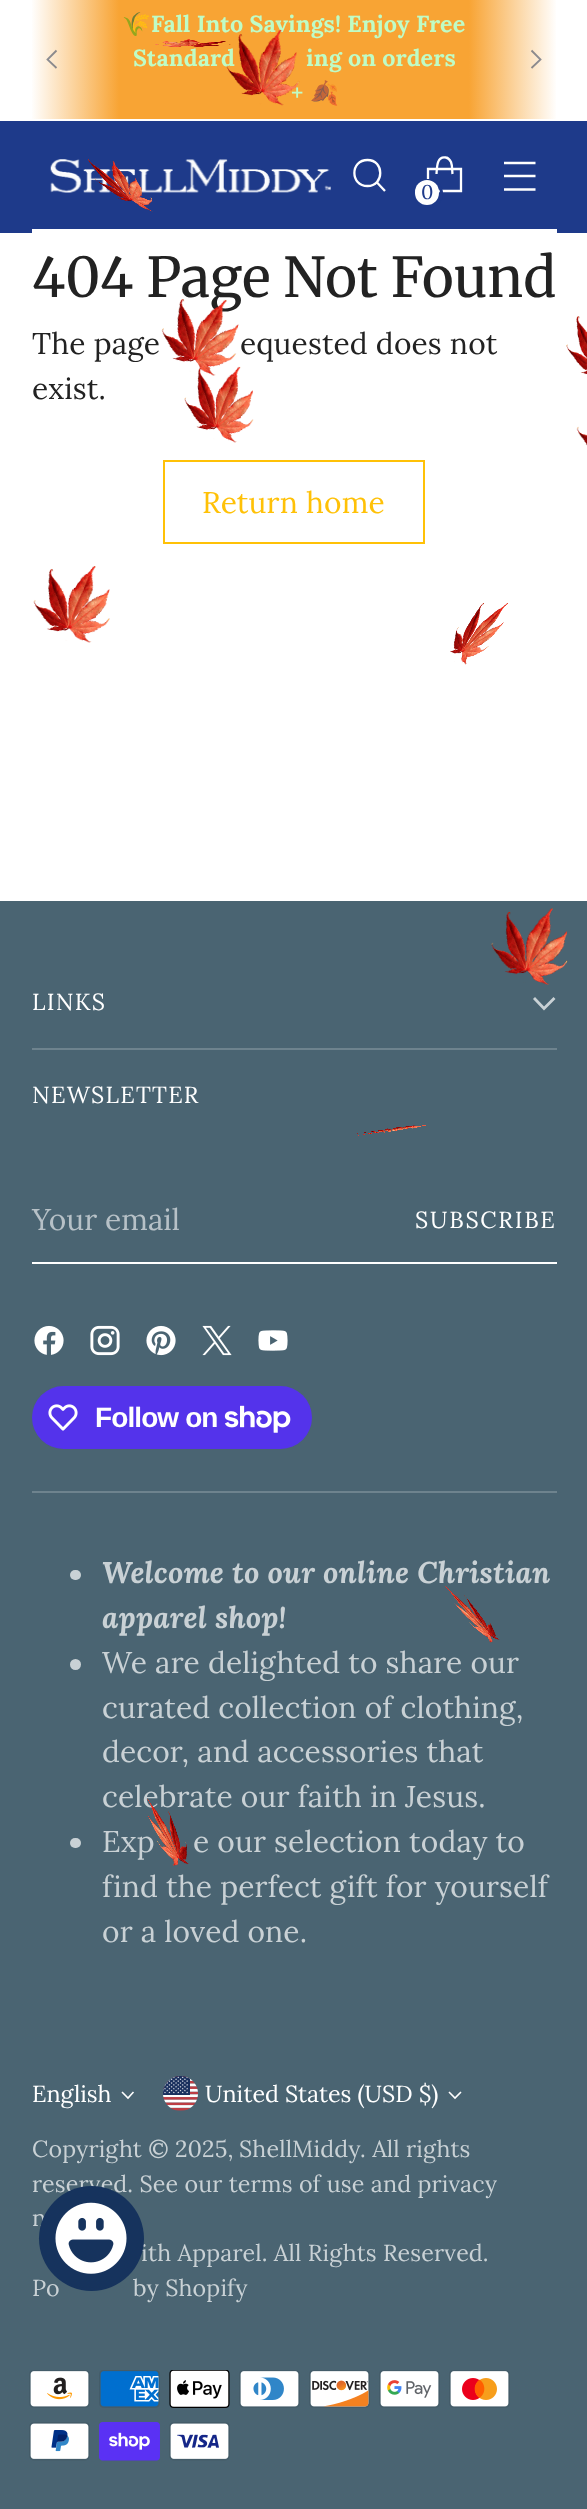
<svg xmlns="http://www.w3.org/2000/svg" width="587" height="2509">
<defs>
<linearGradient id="g1" gradientUnits="userSpaceOnUse" x1="119" y1="60" x2="0" y2="60"><stop offset="0" stop-color="#f8a434"/><stop offset="0.74" stop-color="#fff"/><stop offset="1" stop-color="#fff"/></linearGradient>
<linearGradient id="g2" gradientUnits="userSpaceOnUse" x1="469" y1="60" x2="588" y2="60"><stop offset="0" stop-color="#f8a434"/><stop offset="0.74" stop-color="#fff"/><stop offset="1" stop-color="#fff"/></linearGradient>
</defs>
<rect width="100%" height="100%" fill="#fff"/>
<rect x="119" width="350" height="119" fill="#f8a434"/>
<rect x="32" width="87" height="119" fill="url(#g1)"/>
<path d="M56.5 50.5l-9 9l9 8.5" fill="none" stroke="#1a2c4d80" stroke-width="1.8"/>
<rect x="469" width="87" height="119" fill="url(#g2)"/>
<path d="M531.5 68l9-8.5l-9-9" fill="none" stroke="#1a2c4d80" stroke-width="1.8"/>
<text x="122" y="32" style="font-family:Noto Color Emoji;font-size:23.25px;font-weight:bold;letter-spacing:0.1px;fill:#bffcc6">🌾</text>
<text x="151" y="32" style="font-family:Lora;font-size:23.25px;font-weight:bold;letter-spacing:0.1px;fill:#bffcc6">Fall Into Savings! Enjoy Free</text>
<text x="133" y="66" style="font-family:Lora;font-size:23.25px;font-weight:bold;letter-spacing:0.1px;fill:#bffcc6">Standard</text>
<text x="306" y="66" style="font-family:Lora;font-size:23.25px;font-weight:bold;letter-spacing:0.1px;fill:#bffcc6">ing on orders</text>
<text x="291" y="101" style="font-family:Lora;font-size:23.25px;font-weight:bold;letter-spacing:0.1px;fill:#bffcc6">+</text>
<text x="310" y="101" style="font-family:Noto Color Emoji;font-size:23.25px;font-weight:bold;letter-spacing:0.1px;fill:#bffcc6">🍂</text>
<rect y="121" width="587" height="112" fill="#1e3a8a"/>
<rect x="32" y="229" width="525" height="4" fill="#fff"/>
<image x="50" y="159" width="281" height="34" href="media/1.png"/>
<path d="M367.5 186c17 0 17-26 0-26c-17.5 0-17.5 26 0 26z" fill="none" stroke="#fff" stroke-width="2.3" stroke-linecap="round"/>
<path d="M377 182.5l8 8.5" fill="none" stroke="#fff" stroke-width="2.3"/>
<path d="M452.5 174c-.5-4 0-8-1.5-12c-1-2-2.5-4-5-4.5c-9.5-2-9 10.5-9.5 16.5" fill="none" stroke="#fff" stroke-width="2.3" stroke-linejoin="bevel"/>
<path d="M461 191v-22h-33v22z" fill="none" stroke="#fff" stroke-width="2.3"/>
<rect x="414.5" y="180.5" width="27" height="26" rx="13" fill="none" stroke="#1e3a8a" stroke-width="3"/>
<rect x="415" y="180" width="24" height="25" rx="12" fill="#fff"/>
<text x="421" y="199" style="font-family:Lora;font-size:20px;letter-spacing:0.15px;fill:#1e3a8a">0</text>
<path d="M504 176h31.5m-31.5-13h31.5m-31.5 26.5h31.5" fill="none" stroke="#fff" stroke-width="2.3"/>
<text x="32" y="297" style="font-family:Merriweather;font-size:54.75px;letter-spacing:0.25px;fill:#222">404 Page Not Found</text>
<text x="32" y="354" style="font-family:Lora;font-size:29.9px;letter-spacing:0.15px;fill:#222">The page</text>
<text x="240" y="354" style="font-family:Lora;font-size:29.9px;letter-spacing:0.15px;fill:#222">equested does not</text>
<text x="32" y="399" style="font-family:Lora;font-size:29.9px;letter-spacing:0.15px;fill:#222">exist.</text>
<rect x="164" y="461" width="260" height="82" fill="none" stroke="#ffc107" stroke-width="2"/>
<text x="202" y="513" style="font-family:Lora;font-size:29.9px;letter-spacing:0.15px;fill:#ffc107">Return home</text>
<rect y="901" width="587" height="1608" fill="#4a6472"/>
<rect x="32" y="1048" width="525" height="2" fill="#6e838e"/>
<text x="32" y="1010" style="font-family:Lora;font-size:23.25px;letter-spacing:1.25px;fill:#fff">LINKS</text>
<path d="M534 998l10 10.5l10.5-10.5" fill="none" stroke="#c9d1d5" stroke-width="2.8"/>
<rect x="32" y="1491" width="525" height="2" fill="#6e838e"/>
<text x="32" y="1103" style="font-family:Lora;font-size:23.25px;letter-spacing:1.25px;fill:#fff">NEWSLETTER</text>
<rect x="32" y="1262" width="525" height="2" fill="#fff"/>
<text x="32" y="1230" style="font-family:Lora;font-size:29.9px;fill:#b7c1c7">Your email</text>
<text x="415" y="1228" style="font-family:Lora;font-size:23.25px;letter-spacing:1.75px;fill:#fff">SUBSCRIBE</text>
<image x="34" y="1325" width="30" height="30" href="media/2.png"/>
<image x="90" y="1325" width="30" height="31" href="media/3.png"/>
<image x="146" y="1325" width="30" height="31" href="media/4.png"/>
<image x="202" y="1325" width="30" height="31" href="media/5.png"/>
<image x="258" y="1330" width="30" height="21" href="media/6.png"/>
<rect x="32" y="1386" width="280" height="63" rx="31.5" fill="#5433eb"/>
<image x="48" y="1404" width="30" height="27" href="media/7.png"/>
<text x="95" y="1427" style="font-family:Liberation Sans;font-size:28px;font-weight:bold;letter-spacing:-0.9px;fill:#fff">Follow on</text>
<image x="224" y="1405" width="67" height="28" href="media/8.png"/>
<rect x="70" y="1570" width="11" height="10" rx="5" fill="#c9d1d5"/>
<text x="102" y="1583" style="font-family:Lora;font-size:29.9px;font-weight:bold;font-style:italic;letter-spacing:0.15px;fill:#c9d1d5">Welcome to our online Christian</text>
<text x="102" y="1628" style="font-family:Lora;font-size:29.9px;font-weight:bold;font-style:italic;letter-spacing:0.15px;fill:#c9d1d5">apparel shop!</text>
<circle cx="75.5" cy="1664.5" r="5.5" fill="#c9d1d5"/>
<text x="102" y="1673" style="font-family:Lora;font-size:29.9px;letter-spacing:0.15px;fill:#c9d1d5">We are delighted to share our</text>
<text x="102" y="1718" style="font-family:Lora;font-size:29.9px;letter-spacing:0.15px;fill:#c9d1d5">curated collection of clothing,</text>
<text x="102" y="1762" style="font-family:Lora;font-size:29.9px;letter-spacing:0.15px;fill:#c9d1d5">decor, and accessories that</text>
<text x="102" y="1807" style="font-family:Lora;font-size:29.9px;letter-spacing:0.15px;fill:#c9d1d5">celebrate our faith in Jesus.</text>
<rect x="70" y="1838" width="11" height="10" rx="5" fill="#c9d1d5"/>
<text x="102" y="1852" style="font-family:Lora;font-size:29.9px;letter-spacing:0.15px;fill:#c9d1d5">Exp</text>
<text x="193" y="1852" style="font-family:Lora;font-size:29.9px;letter-spacing:0.15px;fill:#c9d1d5">e our selection today to</text>
<text x="102" y="1897" style="font-family:Lora;font-size:29.9px;letter-spacing:0.15px;fill:#c9d1d5">find the perfect gift for yourself</text>
<text x="102" y="1942" style="font-family:Lora;font-size:29.9px;letter-spacing:0.15px;fill:#c9d1d5">or a loved one.</text>
<text x="32" y="2102" style="font-family:Lora;font-size:23.25px;fill:#fff">English</text>
<path d="M122 2092l6 6l5.5-6" fill="none" stroke="#fff" stroke-width="1.6"/>
<image x="163" y="2076" width="35" height="35" href="media/9.png"/>
<text x="205" y="2102" style="font-family:Lora;font-size:23.25px;fill:#fff">United States (USD</text>
<text x="419" y="2102" style="font-family:Lora;font-size:23.25px;fill:#fff">$)</text>
<path d="M449 2092l6 6l6-6" fill="none" stroke="#fff" stroke-width="1.6"/>
<text x="32" y="2157" style="font-family:Lora;font-size:23.25px;letter-spacing:0.15px;fill:#c9d1d5">Copyright © 2025,</text>
<text x="239" y="2157" style="font-family:Lora;font-size:23.25px;letter-spacing:0.15px;fill:#c9d1d5">ShellMiddy</text>
<text x="360" y="2157" style="font-family:Lora;font-size:23.25px;letter-spacing:0.15px;fill:#c9d1d5">. All rights</text>
<text x="32" y="2192" style="font-family:Lora;font-size:23.25px;letter-spacing:0.15px;fill:#c9d1d5">reserved. See our terms of use and privacy</text>
<text x="32" y="2226" style="font-family:Lora;font-size:23.25px;letter-spacing:0.15px;fill:#c9d1d5">n</text>
<text x="141" y="2261" style="font-family:Lora;font-size:23.25px;letter-spacing:0.15px;fill:#c9d1d5">ith Apparel. All Rights Reserved.</text>
<text x="32" y="2296" style="font-family:Lora;font-size:23.25px;letter-spacing:0.15px;fill:#c9d1d5">Po</text>
<text x="133" y="2296" style="font-family:Lora;font-size:23.25px;letter-spacing:0.15px;fill:#c9d1d5">by Shopify</text>
<image x="29" y="2370" width="61" height="38" href="media/10.png"/>
<image x="99" y="2370" width="61" height="38" href="media/11.png"/>
<image x="169" y="2370" width="61" height="38" href="media/12.png"/>
<image x="239" y="2370" width="61" height="38" href="media/13.png"/>
<image x="309" y="2370" width="61" height="38" href="media/14.png"/>
<image x="379" y="2370" width="61" height="38" href="media/15.png"/>
<image x="449" y="2370" width="61" height="38" href="media/16.png"/>
<image x="29" y="2422" width="61" height="39" href="media/17.png"/>
<image x="99" y="2422" width="61" height="39" href="media/18.png"/>
<image x="169" y="2422" width="61" height="39" href="media/19.png"/>
<image x="155" y="39" width="76" height="8" href="media/20.png"/>
<image x="226" y="29" width="74" height="77" href="media/21.png"/>
<image x="88" y="159" width="65" height="53" href="media/22.png"/>
<image x="184" y="366" width="70" height="77" href="media/25.png"/>
<image x="161" y="299" width="78" height="77" href="media/23.png"/>
<image x="566" y="316" width="21" height="59" href="media/24.png"/>
<image x="576" y="426" width="11" height="20" href="media/26.png"/>
<image x="33" y="566" width="77" height="77" href="media/27.png"/>
<image x="450" y="603" width="58" height="62" href="media/28.png"/>
<image x="491" y="908" width="77" height="77" href="media/29.png"/>
<image x="357" y="1125" width="69" height="11" href="media/30.png"/>
<image x="445" y="1586" width="55" height="57" href="media/31.png"/>
<image x="147" y="1798" width="42" height="68" href="media/32.png"/>
<circle cx="91.5" cy="2238.5" r="52.5" fill="#16335d"/>
<image x="55" y="2202" width="72" height="72" href="media/33.png"/>
</svg>
